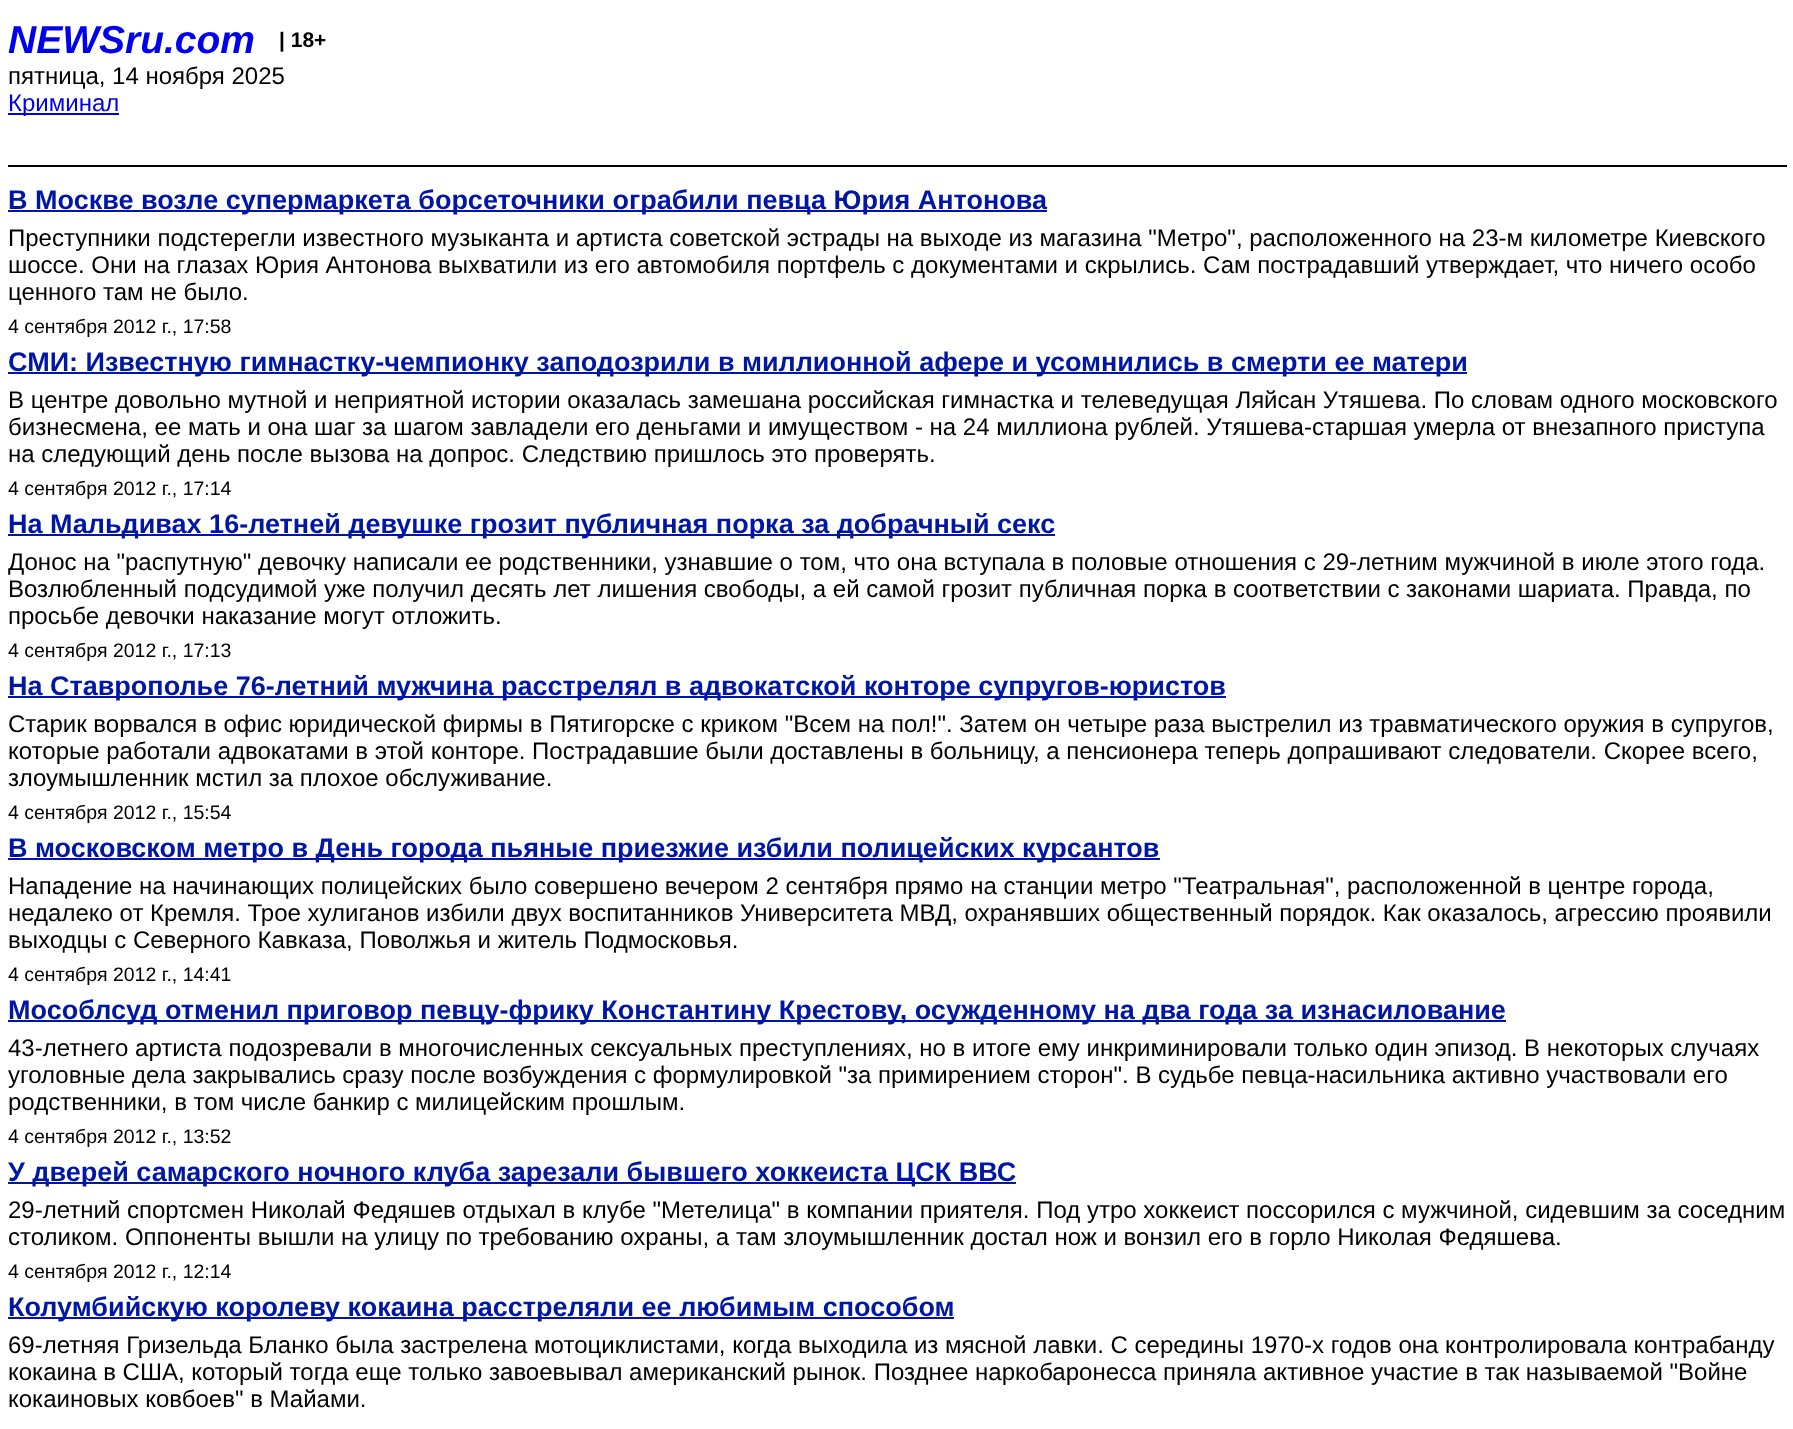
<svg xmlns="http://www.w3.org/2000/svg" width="1793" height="1429">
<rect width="100%" height="100%" fill="#fff"/>
<rect x="8" y="165" width="1779" height="2" fill="#000"/>
<text x="8" y="53" style="font-family:Liberation Sans;font-size:39px;font-weight:bold;font-style:italic;fill:#00e">NEWSru.com</text>
<text x="279" y="47" style="font-family:Liberation Sans;font-size:21px;font-weight:bold;fill:#000">| 18+</text>
<text x="8" y="84" style="font-family:Liberation Sans;font-size:24px;fill:#000">пятница, 14 ноября 2025</text>
<rect x="8" y="113" width="111" height="2" fill="#00e"/>
<text x="8" y="111" style="font-family:Liberation Sans;font-size:24px;fill:#00e">Криминал</text>
<rect x="8" y="210" width="1039" height="2" fill="#0016a6"/>
<text x="8" y="209" style="font-family:Liberation Sans;font-size:27px;font-weight:bold;fill:#0016a6">В Москве возле супермаркета борсеточники ограбили певца Юрия Антонова</text>
<text x="8" y="246" style="font-family:Liberation Sans;font-size:24px;fill:#000">Преступники подстерегли известного музыканта и артиста советской эстрады на выходе из магазина "Метро", расположенного на 23-м километре Киевского</text>
<text x="8" y="273" style="font-family:Liberation Sans;font-size:24px;fill:#000">шоссе. Они на глазах Юрия Антонова выхватили из его автомобиля портфель с документами и скрылись. Сам пострадавший утверждает, что ничего особо</text>
<text x="8" y="300" style="font-family:Liberation Sans;font-size:24px;fill:#000">ценного там не было.</text>
<text x="8" y="333" style="font-family:Liberation Sans;font-size:19.5px;fill:#000">4 сентября 2012 г., 17:58</text>
<rect x="8" y="372" width="1459" height="2" fill="#0016a6"/>
<text x="8" y="371" style="font-family:Liberation Sans;font-size:27px;font-weight:bold;fill:#0016a6">СМИ: Известную гимнастку-чемпионку заподозрили в миллионной афере и усомнились в смерти ее матери</text>
<text x="8" y="408" style="font-family:Liberation Sans;font-size:24px;fill:#000">В центре довольно мутной и неприятной истории оказалась замешана российская гимнастка и телеведущая Ляйсан Утяшева. По словам одного московского</text>
<text x="8" y="435" style="font-family:Liberation Sans;font-size:24px;fill:#000">бизнесмена, ее мать и она шаг за шагом завладели его деньгами и имуществом - на 24 миллиона рублей. Утяшева-старшая умерла от внезапного приступа</text>
<text x="8" y="462" style="font-family:Liberation Sans;font-size:24px;fill:#000">на следующий день после вызова на допрос. Следствию пришлось это проверять.</text>
<text x="8" y="495" style="font-family:Liberation Sans;font-size:19.5px;fill:#000">4 сентября 2012 г., 17:14</text>
<rect x="8" y="534" width="1047" height="2" fill="#0016a6"/>
<text x="8" y="533" style="font-family:Liberation Sans;font-size:27px;font-weight:bold;fill:#0016a6">На Мальдивах 16-летней девушке грозит публичная порка за добрачный секс</text>
<text x="8" y="570" style="font-family:Liberation Sans;font-size:24px;fill:#000">Донос на "распутную" девочку написали ее родственники, узнавшие о том, что она вступала в половые отношения с 29-летним мужчиной в июле этого года.</text>
<text x="8" y="597" style="font-family:Liberation Sans;font-size:24px;fill:#000">Возлюбленный подсудимой уже получил десять лет лишения свободы, а ей самой грозит публичная порка в соответствии с законами шариата. Правда, по</text>
<text x="8" y="624" style="font-family:Liberation Sans;font-size:24px;fill:#000">просьбе девочки наказание могут отложить.</text>
<text x="8" y="657" style="font-family:Liberation Sans;font-size:19.5px;fill:#000">4 сентября 2012 г., 17:13</text>
<rect x="8" y="696" width="1218" height="2" fill="#0016a6"/>
<text x="8" y="695" style="font-family:Liberation Sans;font-size:27px;font-weight:bold;fill:#0016a6">На Ставрополье 76-летний мужчина расстрелял в адвокатской конторе супругов-юристов</text>
<text x="8" y="732" style="font-family:Liberation Sans;font-size:24px;fill:#000">Старик ворвался в офис юридической фирмы в Пятигорске с криком "Всем на пол!". Затем он четыре раза выстрелил из травматического оружия в супругов,</text>
<text x="8" y="759" style="font-family:Liberation Sans;font-size:24px;fill:#000">которые работали адвокатами в этой конторе. Пострадавшие были доставлены в больницу, а пенсионера теперь допрашивают следователи. Скорее всего,</text>
<text x="8" y="786" style="font-family:Liberation Sans;font-size:24px;fill:#000">злоумышленник мстил за плохое обслуживание.</text>
<text x="8" y="819" style="font-family:Liberation Sans;font-size:19.5px;fill:#000">4 сентября 2012 г., 15:54</text>
<rect x="8" y="858" width="1152" height="2" fill="#0016a6"/>
<text x="8" y="857" style="font-family:Liberation Sans;font-size:27px;font-weight:bold;fill:#0016a6">В московском метро в День города пьяные приезжие избили полицейских курсантов</text>
<text x="8" y="894" style="font-family:Liberation Sans;font-size:24px;fill:#000">Нападение на начинающих полицейских было совершено вечером 2 сентября прямо на станции метро "Театральная", расположенной в центре города,</text>
<text x="8" y="921" style="font-family:Liberation Sans;font-size:24px;fill:#000">недалеко от Кремля. Трое хулиганов избили двух воспитанников Университета МВД, охранявших общественный порядок. Как оказалось, агрессию проявили</text>
<text x="8" y="948" style="font-family:Liberation Sans;font-size:24px;fill:#000">выходцы с Северного Кавказа, Поволжья и житель Подмосковья.</text>
<text x="8" y="981" style="font-family:Liberation Sans;font-size:19.5px;fill:#000">4 сентября 2012 г., 14:41</text>
<rect x="8" y="1020" width="1498" height="2" fill="#0016a6"/>
<text x="8" y="1019" style="font-family:Liberation Sans;font-size:27px;font-weight:bold;fill:#0016a6">Мособлсуд отменил приговор певцу-фрику Константину Крестову, осужденному на два года за изнасилование</text>
<text x="8" y="1056" style="font-family:Liberation Sans;font-size:24px;fill:#000">43-летнего артиста подозревали в многочисленных сексуальных преступлениях, но в итоге ему инкриминировали только один эпизод. В некоторых случаях</text>
<text x="8" y="1083" style="font-family:Liberation Sans;font-size:24px;fill:#000">уголовные дела закрывались сразу после возбуждения с формулировкой "за примирением сторон". В судьбе певца-насильника активно участвовали его</text>
<text x="8" y="1110" style="font-family:Liberation Sans;font-size:24px;fill:#000">родственники, в том числе банкир с милицейским прошлым.</text>
<text x="8" y="1143" style="font-family:Liberation Sans;font-size:19.5px;fill:#000">4 сентября 2012 г., 13:52</text>
<rect x="8" y="1182" width="1008" height="2" fill="#0016a6"/>
<text x="8" y="1181" style="font-family:Liberation Sans;font-size:27px;font-weight:bold;fill:#0016a6">У дверей самарского ночного клуба зарезали бывшего хоккеиста ЦСК ВВС</text>
<text x="8" y="1218" style="font-family:Liberation Sans;font-size:24px;fill:#000">29-летний спортсмен Николай Федяшев отдыхал в клубе "Метелица" в компании приятеля. Под утро хоккеист поссорился с мужчиной, сидевшим за соседним</text>
<text x="8" y="1245" style="font-family:Liberation Sans;font-size:24px;fill:#000">столиком. Оппоненты вышли на улицу по требованию охраны, а там злоумышленник достал нож и вонзил его в горло Николая Федяшева.</text>
<text x="8" y="1278" style="font-family:Liberation Sans;font-size:19.5px;fill:#000">4 сентября 2012 г., 12:14</text>
<rect x="8" y="1317" width="946" height="2" fill="#0016a6"/>
<text x="8" y="1316" style="font-family:Liberation Sans;font-size:27px;font-weight:bold;fill:#0016a6">Колумбийскую королеву кокаина расстреляли ее любимым способом</text>
<text x="8" y="1353" style="font-family:Liberation Sans;font-size:24px;fill:#000">69-летняя Гризельда Бланко была застрелена мотоциклистами, когда выходила из мясной лавки. С середины 1970-х годов она контролировала контрабанду</text>
<text x="8" y="1380" style="font-family:Liberation Sans;font-size:24px;fill:#000">кокаина в США, который тогда еще только завоевывал американский рынок. Позднее наркобаронесса приняла активное участие в так называемой "Войне</text>
<text x="8" y="1407" style="font-family:Liberation Sans;font-size:24px;fill:#000">кокаиновых ковбоев" в Майами.</text>
</svg>
